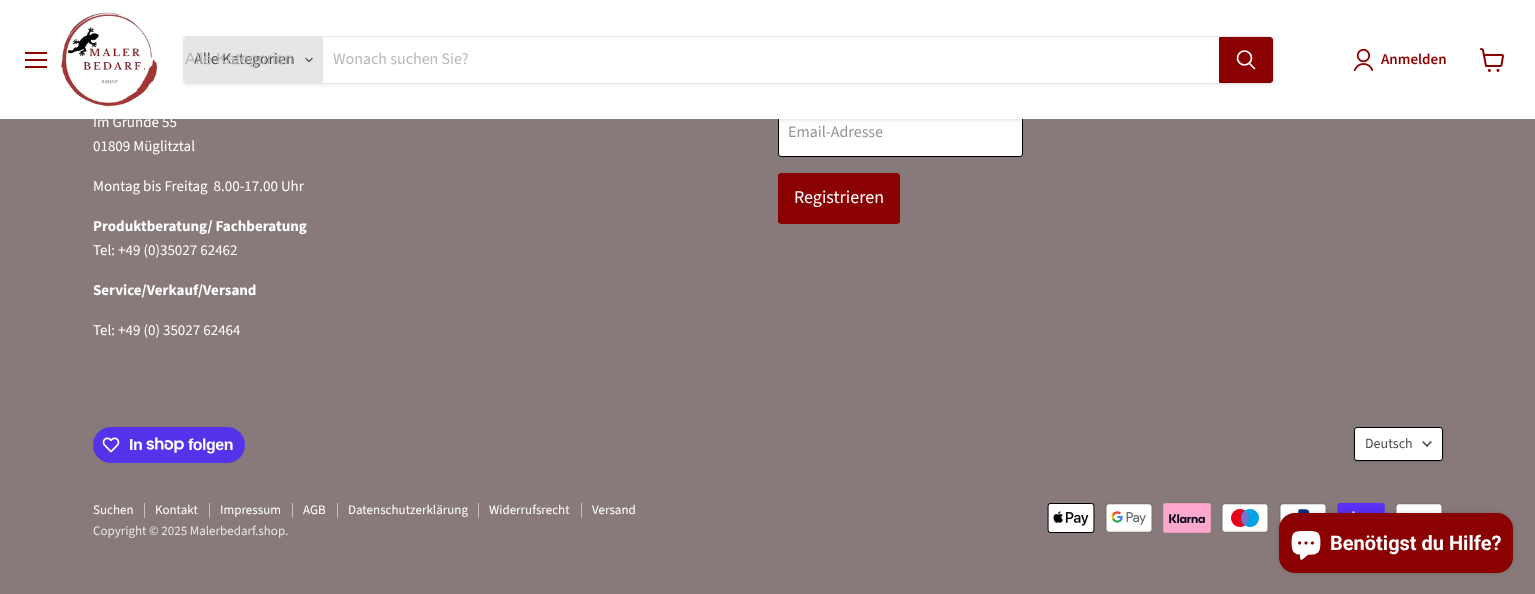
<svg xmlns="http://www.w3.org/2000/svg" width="1535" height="594">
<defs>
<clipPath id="clip1"><path d="M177 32h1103v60h-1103zm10 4h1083c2 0 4 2 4 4v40c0 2-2 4-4 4h-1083c-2 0-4-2-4-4v-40c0-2 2-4 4-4z" clip-rule="evenodd"/></clipPath>
</defs>
<rect width="100%" height="100%" fill="#887a7a"/>
<rect x="778.5" y="107.5" width="244" height="49" rx="2.5" fill="#fff" stroke="#000"/>
<rect y="1" width="1535" height="119" fill="#80808040" filter="blur(2px)"/>
<rect width="1535" height="119" fill="#fff"/>
<rect x="25" y="52" width="22" height="2" fill="#8b0000"/>
<rect x="25" y="59" width="22" height="2" fill="#8b0000"/>
<rect x="25" y="66" width="22" height="2" fill="#8b0000"/>
<image x="61" y="12" width="97" height="95" href="media/1.png"/>
<g clip-path="url(#clip1)">
<rect x="183" y="38" width="1091" height="48" rx="4" fill="#8080801c" filter="blur(1.5px)"/>
</g>
<rect x="183.5" y="36.5" width="1090" height="47" rx="3.5" fill="none" stroke="#80808033"/>
<path d="M187 37h136v46h-136c-1.5 0-3-1.5-3-3v-40c0-1.5 1.5-3 3-3z" fill="#e6e6e6"/>
<text x="194" y="64" style="font-family:Source Sans Pro;font-size:16px;fill:#4d4d4d">Alle Kategorien</text>
<text x="185" y="64" style="font-family:Liberation Sans;font-size:16px;fill:#b8b8b8">Alle Kategorien</text>
<image x="305" y="57" width="8" height="6" href="media/2.png"/>
<text x="333" y="64" style="font-family:Source Sans Pro;font-size:16px;fill:#b8b8b8">Wonach suchen Sie?</text>
<path d="M1219.5 37.5h50.5c1.5 0 2.5 1 2.5 2.5v40c0 1.5-1 2.5-2.5 2.5h-50.5z" fill="#8b0000" stroke="#8b0000"/>
<path d="M1254.5 68.5l-5-5" fill="none" stroke="#fff" stroke-width="1.7" stroke-linecap="round"/>
<circle cx="1244.5" cy="58" r="7" fill="none" stroke="#fff" stroke-width="1.7"/>
<image x="1353" y="48" width="20" height="24" href="media/3.png"/>
<text x="1381" y="64" style="font-family:Source Sans Pro;font-size:15px;font-weight:600;fill:#8b0000">Anmelden</text>
<image x="1480" y="48" width="24" height="24" href="media/4.png"/>
<text x="93" y="127" style="font-family:Source Sans Pro;font-size:15px;fill:#fff">Im Grunde 55</text>
<text x="93" y="151" style="font-family:Source Sans Pro;font-size:15px;fill:#fff">01809 Müglitztal</text>
<text x="93" y="191" style="font-family:Source Sans Pro;font-size:15px;fill:#fff" xml:space="preserve">Montag bis Freitag  8.00-17.00 Uhr</text>
<text x="93" y="231" style="font-family:Source Sans Pro;font-size:15px;font-weight:bold;fill:#fff">Produktberatung/ Fachberatung</text>
<text x="93" y="255" style="font-family:Source Sans Pro;font-size:15px;fill:#fff">Tel: +49 (0)35027 62462</text>
<text x="93" y="295" style="font-family:Source Sans Pro;font-size:15px;font-weight:bold;fill:#fff">Service/Verkauf/Versand</text>
<text x="93" y="335" style="font-family:Source Sans Pro;font-size:15px;fill:#fff">Tel: +49 (0) 35027 62464</text>
<text x="788" y="137" style="font-family:Source Sans Pro;font-size:16px;fill:#949494">Email-Adresse</text>
<rect x="778.5" y="173.5" width="121" height="50" rx="2.5" fill="#8b0000" stroke="#8b0000"/>
<text x="794" y="203" style="font-family:Source Sans Pro;font-size:18px;fill:#fff">Registrieren</text>
<rect x="93" y="427" width="152" height="36" rx="18" fill="#5433eb"/>
<image x="102" y="437" width="18" height="16" href="media/5.png"/>
<text x="129" y="450" style="font-family:Liberation Sans;font-size:16px;font-weight:bold;letter-spacing:-0.5px;fill:#fff">In</text>
<image x="146" y="437" width="38" height="16" href="media/6.png"/>
<text x="188" y="450" style="font-family:Liberation Sans;font-size:16px;font-weight:bold;letter-spacing:-0.5px;fill:#fff">folgen</text>
<rect x="1354" y="428" width="89" height="34" rx="3" fill="#00000026" filter="blur(1px)"/>
<rect x="1354.5" y="427.5" width="88" height="33" rx="2.5" fill="#fff" stroke="#000"/>
<text x="1365" y="448" style="font-family:Source Sans Pro;font-size:14px;fill:#4d4d4d">Deutsch</text>
<image x="1422" y="441" width="10" height="6" href="media/7.png"/>
<rect x="144" y="503" width="1" height="15" fill="#c4bdbd"/>
<text x="93" y="514" style="font-family:Source Sans Pro;font-size:13px;fill:#fff">Suchen</text>
<rect x="209" y="503" width="1" height="15" fill="#c4bdbd"/>
<text x="155" y="514" style="font-family:Source Sans Pro;font-size:13px;fill:#fff">Kontakt</text>
<rect x="292" y="503" width="1" height="15" fill="#c4bdbd"/>
<text x="220" y="514" style="font-family:Source Sans Pro;font-size:13px;fill:#fff">Impressum</text>
<rect x="337" y="503" width="1" height="15" fill="#c4bdbd"/>
<text x="303" y="514" style="font-family:Source Sans Pro;font-size:13px;fill:#fff">AGB</text>
<rect x="478" y="503" width="1" height="15" fill="#c4bdbd"/>
<text x="348" y="514" style="font-family:Source Sans Pro;font-size:13px;fill:#fff">Datenschutzerklärung</text>
<rect x="581" y="503" width="1" height="15" fill="#c4bdbd"/>
<text x="489" y="514" style="font-family:Source Sans Pro;font-size:13px;fill:#fff">Widerrufsrecht</text>
<text x="592" y="514" style="font-family:Source Sans Pro;font-size:13px;fill:#fff">Versand</text>
<text x="93" y="535" style="font-family:Source Sans Pro;font-size:13px;fill:#e7e4e4">Copyright © 2025 Malerbedarf.shop.</text>
<image x="1047" y="503" width="48" height="30" href="media/8.png"/>
<image x="1105" y="503" width="48" height="30" href="media/9.png"/>
<image x="1163" y="503" width="48" height="30" href="media/10.png"/>
<image x="1221" y="503" width="48" height="30" href="media/11.png"/>
<image x="1279" y="503" width="48" height="26" href="media/12.png"/>
<image x="1337" y="503" width="48" height="10" href="media/13.png"/>
<image x="1395" y="503" width="48" height="10" href="media/14.png"/>
<rect x="1279" y="513" width="234" height="60" rx="16" fill="#00000026" filter="blur(2.5px)"/>
<rect x="1279" y="513" width="234" height="60" rx="16" fill="#8b0000"/>
<image x="1291" y="531" width="30" height="29" href="media/15.png"/>
<text x="1330" y="550" style="font-family:Roboto;font-size:20px;font-weight:bold;fill:#fff">Benötigst du Hilfe?</text>
</svg>
